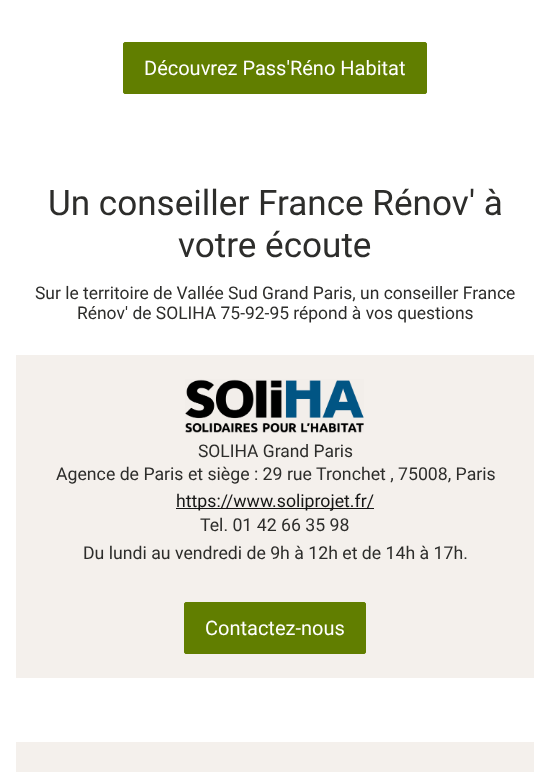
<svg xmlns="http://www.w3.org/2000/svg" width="550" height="772">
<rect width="100%" height="100%" fill="#fff"/>
<rect x="123.5" y="42.5" width="303" height="51" rx="1.5" fill="#617e00" stroke="#617e00"/>
<text x="144" y="75" style="font-family:Roboto;font-size:20px;fill:#fff">Découvrez Pass'Réno Habitat</text>
<text x="48" y="215" style="font-family:Roboto;font-size:35.1px;fill:#2d2d2b">Un conseiller France Rénov' à</text>
<text x="178" y="257" style="font-family:Roboto;font-size:35.1px;fill:#2d2d2b">votre écoute</text>
<text x="35" y="299" style="font-family:Roboto;font-size:17.45px;fill:#2d2d2b">Sur le territoire de Vallée Sud Grand Paris, un conseiller France</text>
<text x="77" y="319" style="font-family:Roboto;font-size:17.45px;fill:#2d2d2b">Rénov' de SOLIHA 75-92-95 répond à vos questions</text>
<rect x="16" y="355" width="518" height="323" fill="#f4f0ec"/>
<image x="185" y="379" width="179" height="54" href="media/1.png"/>
<text x="198" y="457" style="font-family:Roboto;font-size:17.45px;fill:#2d2d2b">SOLIHA Grand Paris</text>
<text x="56" y="480" style="font-family:Roboto;font-size:17.7px;fill:#2d2d2b">Agence de Paris et siège : 29 rue Tronchet , 75008, Paris</text>
<rect x="176" y="508" width="198" height="1" fill="#161615"/>
<text x="176" y="507" style="font-family:Roboto;font-size:17.7px;fill:#161615">https://www.soliprojet.fr/</text>
<text x="200" y="531" style="font-family:Roboto;font-size:17.7px;fill:#2d2d2b">Tel. 01 42 66 35 98</text>
<text x="83" y="559" style="font-family:Roboto;font-size:17.7px;fill:#2d2d2b">Du lundi au vendredi de 9h à 12h et de 14h à 17h.</text>
<rect x="184.5" y="602.5" width="181" height="51" rx="1.5" fill="#617e00" stroke="#617e00"/>
<text x="205" y="635" style="font-family:Roboto;font-size:20px;fill:#fff">Contactez-nous</text>
<rect x="16" y="742" width="518" height="30" fill="#f4f0ec"/>
</svg>
